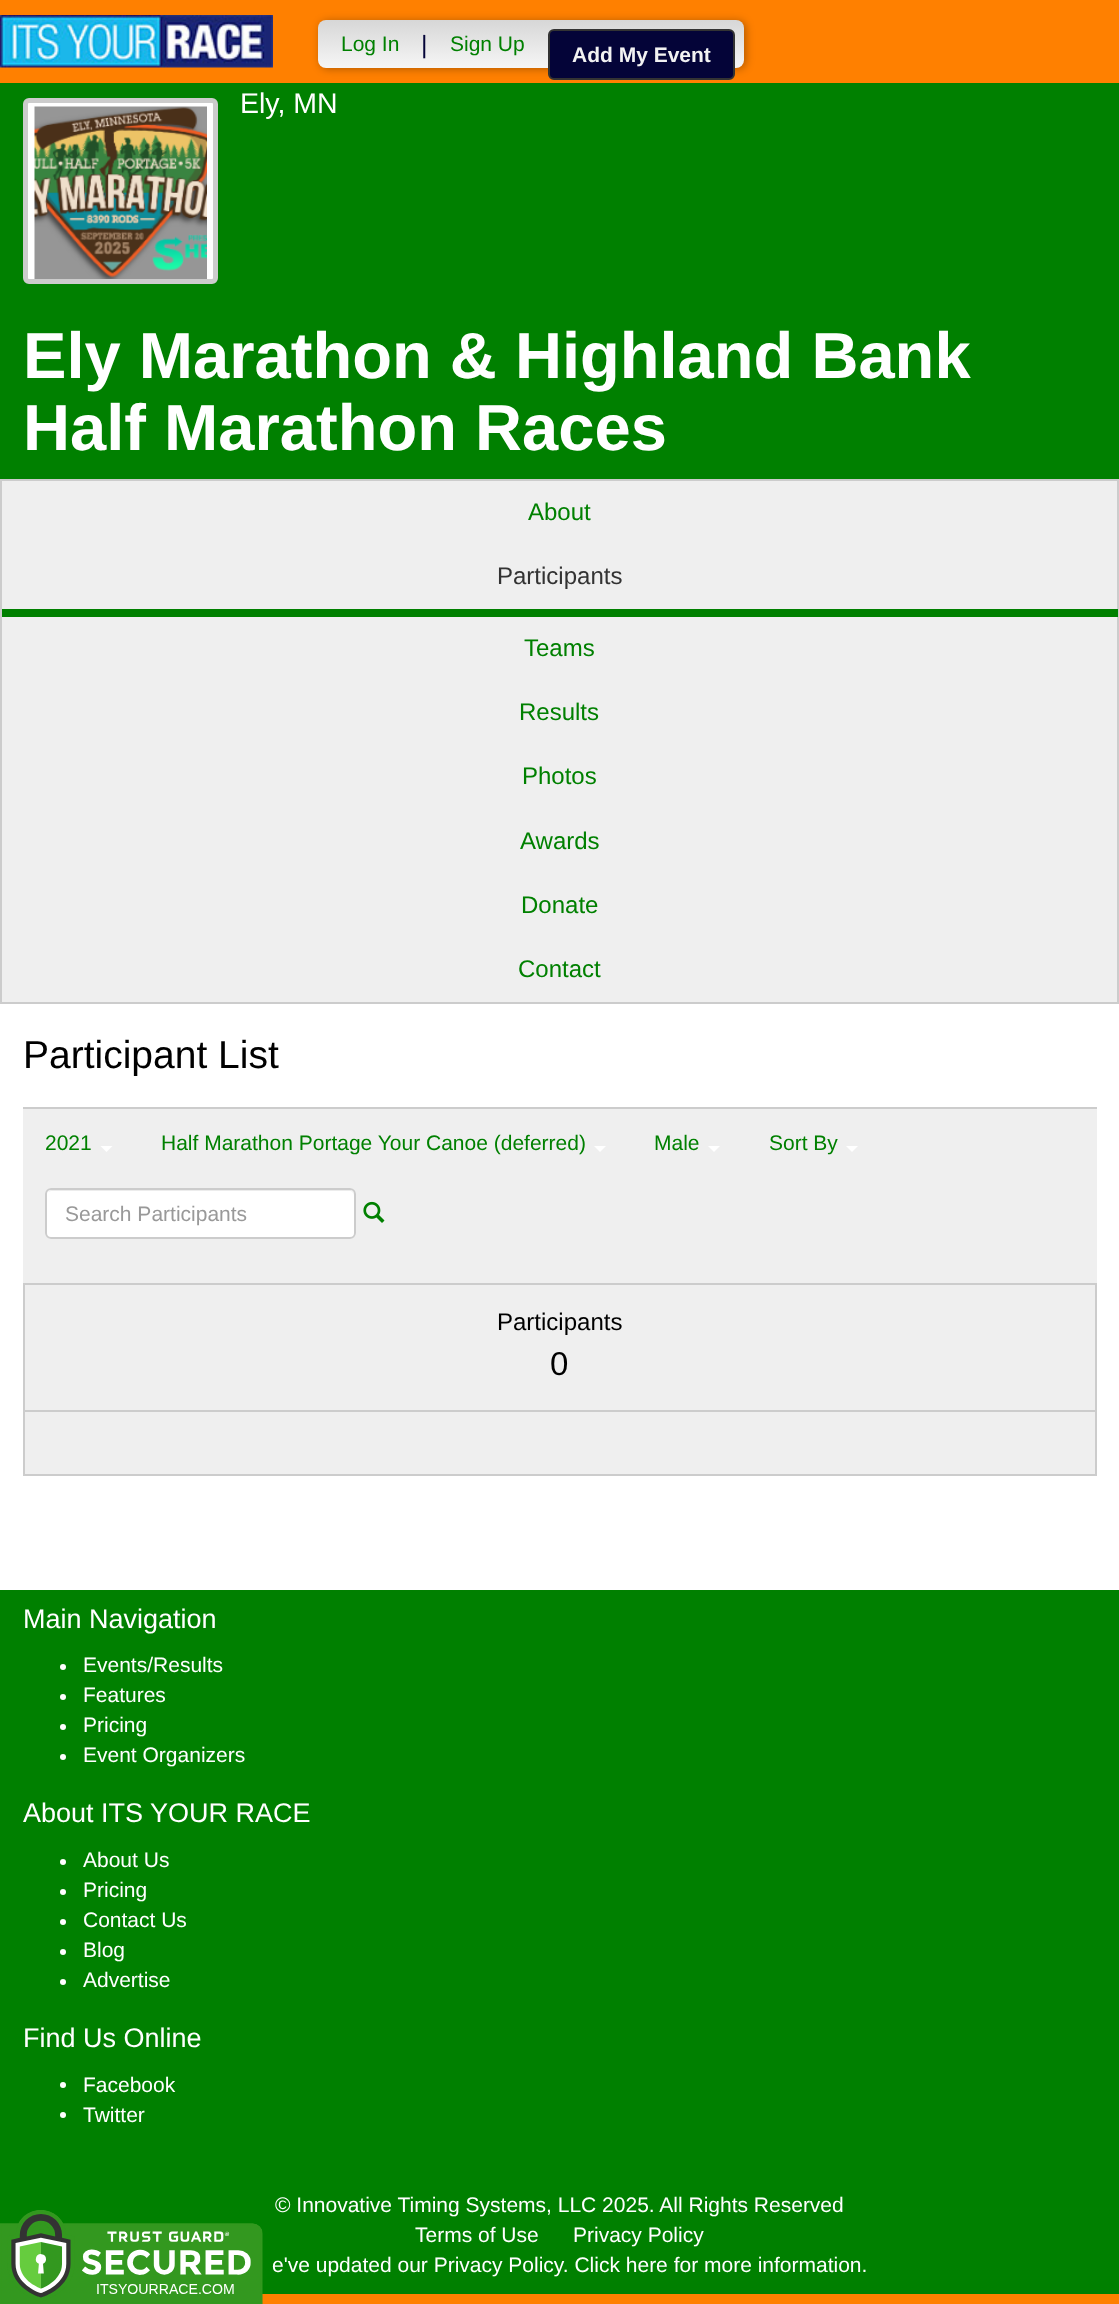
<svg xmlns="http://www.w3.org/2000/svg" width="1119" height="2304">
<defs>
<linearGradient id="g1" gradientUnits="userSpaceOnUse" x1="531" y1="19" x2="531" y2="68"><stop offset="0" stop-color="#d6d6d6"/><stop offset="1" stop-color="#f6f6f6"/></linearGradient>
</defs>
<rect width="100%" height="100%" fill="#ff8000"/>
<image x="0" y="15" width="273" height="53" href="media/1.png"/>
<rect x="320" y="21" width="426" height="48" rx="8" fill="#0000004d" filter="blur(4px)"/>
<rect x="318" y="20" width="426" height="48" rx="8" fill="url(#g1)"/>
<text x="341" y="51" style="font-family:Liberation Sans;font-size:21px;fill:#008000">Log In</text>
<text x="421" y="53" style="font-family:Liberation Sans;font-size:25px;fill:#040438">|</text>
<text x="450" y="51" style="font-family:Liberation Sans;font-size:21px;fill:#008000">Sign Up</text>
<rect x="549" y="30" width="185" height="49" rx="5" fill="#040438" stroke="#333" stroke-width="2"/>
<text x="572" y="62" style="font-family:Liberation Sans;font-size:21px;font-weight:bold;fill:#f2f2f2">Add My Event</text>
<rect y="83" width="1119" height="396" fill="#008000"/>
<rect x="25.5" y="100.5" width="190" height="181" rx="3.5" fill="#fff" stroke="#ccc" stroke-width="5"/>
<image x="34" y="106" width="173" height="173" href="media/2.png"/>
<text x="240" y="113" style="font-family:Liberation Sans;font-size:28.5px;fill:#fff">Ely, MN</text>
<text x="23" y="378" style="font-family:Liberation Sans;font-size:65.1px;font-weight:bold;fill:#fff">Ely Marathon &amp; Highland Bank</text>
<text x="23" y="450" style="font-family:Liberation Sans;font-size:65.1px;font-weight:bold;fill:#fff">Half Marathon Races</text>
<rect y="1004" width="1119" height="586" fill="#fff"/>
<rect x="1" y="480" width="1117" height="523" fill="#efefef" stroke="#ccc" stroke-width="2"/>
<text x="528" y="520" style="font-family:Liberation Sans;font-size:24px;fill:#008000">About</text>
<rect x="2" y="609" width="1116" height="8" fill="#008000"/>
<text x="497" y="584" style="font-family:Liberation Sans;font-size:24px;fill:#333">Participants</text>
<text x="524" y="656" style="font-family:Liberation Sans;font-size:24px;fill:#008000">Teams</text>
<text x="519" y="720" style="font-family:Liberation Sans;font-size:24px;fill:#008000">Results</text>
<text x="522" y="784" style="font-family:Liberation Sans;font-size:24px;fill:#008000">Photos</text>
<text x="520" y="849" style="font-family:Liberation Sans;font-size:24px;fill:#008000">Awards</text>
<text x="521" y="913" style="font-family:Liberation Sans;font-size:24px;fill:#008000">Donate</text>
<text x="518" y="977" style="font-family:Liberation Sans;font-size:24px;fill:#008000">Contact</text>
<text x="23" y="1068" style="font-family:Liberation Sans;font-size:39px;fill:#000">Participant List</text>
<rect x="23" y="1109" width="1074" height="174" fill="#efefef"/>
<rect x="23" y="1107" width="1074" height="2" fill="#ccc"/>
<text x="45" y="1150" style="font-family:Liberation Sans;font-size:21px;fill:#008000">2021</text>
<path d="M100.5 1146h12l-6 6z" fill="#fff"/>
<text x="161" y="1150" style="font-family:Liberation Sans;font-size:21px;fill:#008000">Half Marathon Portage Your Canoe (deferred)</text>
<path d="M594 1146h12l-6 6z" fill="#fff"/>
<text x="654" y="1150" style="font-family:Liberation Sans;font-size:21px;fill:#008000">Male</text>
<path d="M708 1146h12l-6 6z" fill="#fff"/>
<text x="769" y="1150" style="font-family:Liberation Sans;font-size:21px;fill:#008000">Sort By</text>
<path d="M846 1146h12l-6 6z" fill="#fff"/>
<rect x="45" y="1188" width="311" height="51" rx="6" fill="#fff"/>
<path d="M51 1191h299c2 0 4 2 4 5v-1c0-3-2-5-5-5h-297c-2 0-3 1-4 2z" fill="#ececec"/>
<rect x="46" y="1189" width="309" height="49" rx="5" fill="none" stroke="#ccc" stroke-width="2"/>
<text x="65" y="1221" style="font-family:Liberation Sans;font-size:21px;fill:#999">Search Participants</text>
<image x="363" y="1201" width="22" height="22" href="media/3.png"/>
<rect x="24" y="1284" width="1072" height="191" fill="#efefef" stroke="#ccc" stroke-width="2"/>
<rect x="24" y="1410" width="1071" height="2" fill="#ccc"/>
<text x="497" y="1330" style="font-family:Liberation Sans;font-size:24px;fill:#000">Participants</text>
<text x="550" y="1375" style="font-family:Liberation Sans;font-size:33px;fill:#000">0</text>
<rect y="1590" width="1119" height="704" fill="#008000"/>
<text x="23" y="1628" style="font-family:Liberation Sans;font-size:27px;fill:#fff">Main Navigation</text>
<circle cx="63" cy="1667" r="3" fill="#fff"/>
<text x="83" y="1672" style="font-family:Liberation Sans;font-size:21px;fill:#fff">Events/Results</text>
<circle cx="63" cy="1697" r="3" fill="#fff"/>
<text x="83" y="1702" style="font-family:Liberation Sans;font-size:21px;fill:#fff">Features</text>
<circle cx="63" cy="1727" r="3" fill="#fff"/>
<text x="83" y="1732" style="font-family:Liberation Sans;font-size:21px;fill:#fff">Pricing</text>
<circle cx="63" cy="1757" r="3" fill="#fff"/>
<text x="83" y="1762" style="font-family:Liberation Sans;font-size:21px;fill:#fff">Event Organizers</text>
<text x="23" y="1822" style="font-family:Liberation Sans;font-size:27px;fill:#fff">About ITS YOUR RACE</text>
<circle cx="63" cy="1862" r="3" fill="#fff"/>
<text x="83" y="1867" style="font-family:Liberation Sans;font-size:21px;fill:#fff">About Us</text>
<circle cx="63" cy="1892" r="3" fill="#fff"/>
<text x="83" y="1897" style="font-family:Liberation Sans;font-size:21px;fill:#fff">Pricing</text>
<circle cx="63" cy="1922" r="3" fill="#fff"/>
<text x="83" y="1927" style="font-family:Liberation Sans;font-size:21px;fill:#fff">Contact Us</text>
<circle cx="63" cy="1952" r="3" fill="#fff"/>
<text x="83" y="1957" style="font-family:Liberation Sans;font-size:21px;fill:#fff">Blog</text>
<circle cx="63" cy="1982" r="3" fill="#fff"/>
<text x="83" y="1987" style="font-family:Liberation Sans;font-size:21px;fill:#fff">Advertise</text>
<text x="23" y="2047" style="font-family:Liberation Sans;font-size:27px;fill:#fff">Find Us Online</text>
<circle cx="63" cy="2085" r="3" fill="#fff"/>
<text x="83" y="2092" style="font-family:Liberation Sans;font-size:21px;fill:#fff">Facebook</text>
<circle cx="63" cy="2115" r="3" fill="#fff"/>
<text x="83" y="2122" style="font-family:Liberation Sans;font-size:21px;fill:#fff">Twitter</text>
<text x="275" y="2212" style="font-family:Liberation Sans;font-size:21px;fill:#fff">© Innovative Timing Systems, LLC 2025. All Rights Reserved</text>
<text x="415" y="2242" style="font-family:Liberation Sans;font-size:21px;fill:#fff">Terms of Use</text>
<text x="573" y="2242" style="font-family:Liberation Sans;font-size:21px;fill:#fff">Privacy Policy</text>
<text x="272" y="2272" style="font-family:Liberation Sans;font-size:21px;fill:#fff">e've updated our Privacy Policy. Click here for more information.</text>
<image x="0" y="2210" width="263" height="94" href="media/4.png"/>
</svg>
